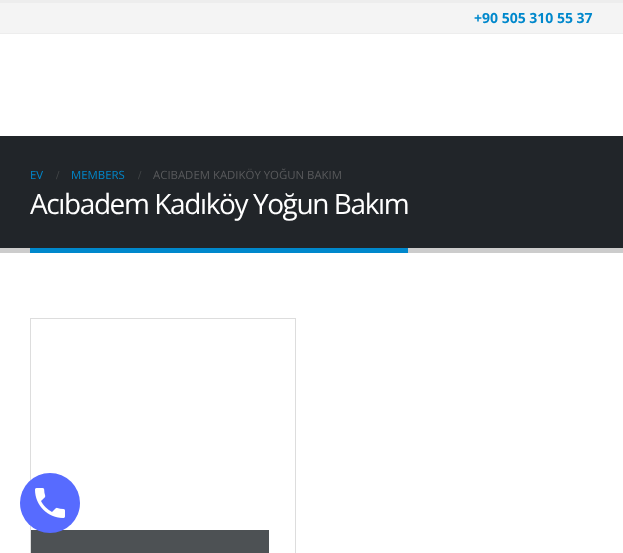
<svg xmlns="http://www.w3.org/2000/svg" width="623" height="553">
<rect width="100%" height="100%" fill="#fff"/>
<rect width="623" height="3" fill="#ededed"/>
<rect y="3" width="623" height="30" fill="#f4f4f4"/>
<rect y="33" width="623" height="1" fill="#ededed"/>
<text x="474" y="23" style="font-family:Open Sans;font-size:14px;font-weight:bold;fill:#08c">+90 505 310 55 37</text>
<rect y="136" width="623" height="112" fill="#212529"/>
<rect y="248" width="623" height="5" fill="#ccc"/>
<text x="30" y="179" style="font-family:Open Sans;font-size:11.4px;fill:#08c">EV</text>
<text x="56" y="179" style="font-family:Liberation Serif;font-size:12px;font-weight:bold;fill:#434648">/</text>
<text x="71" y="179" style="font-family:Open Sans;font-size:11.4px;fill:#08c">MEMBERS</text>
<text x="138" y="179" style="font-family:Liberation Serif;font-size:12px;font-weight:bold;fill:#434648">/</text>
<text x="153" y="179" style="font-family:Open Sans;font-size:11.4px;fill:#595a5c">ACIBADEM KADIKÖY YOĞUN BAKIM</text>
<text x="30" y="214" style="font-family:Open Sans;font-size:28px;letter-spacing:-1.4px;fill:#fff">Acıbadem Kadıköy Yoğun Bakım</text>
<rect x="30" y="248" width="378" height="5" fill="#08c"/>
<rect x="30.5" y="318.5" width="265" height="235" fill="none" stroke="#ddd"/>
<rect x="31" y="530" width="238" height="23" fill="#4d5154"/>
<circle cx="50" cy="503" r="30" fill="#576bff"/>
<image x="35" y="488" width="30" height="30" href="media/1.png"/>
</svg>
